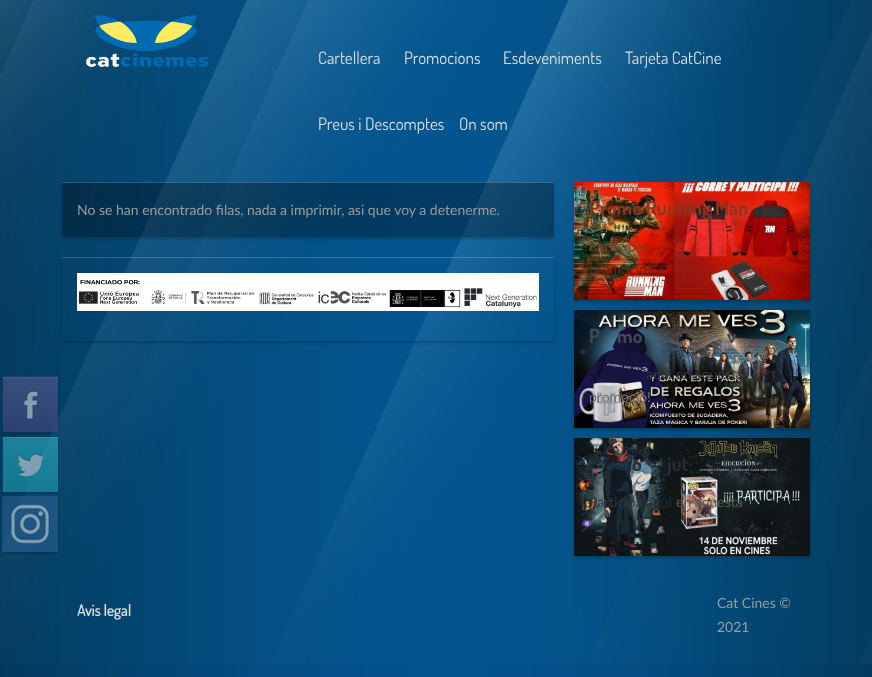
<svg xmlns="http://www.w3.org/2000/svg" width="872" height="677">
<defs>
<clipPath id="clip1"><path d="M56 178h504v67h-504zm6 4h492v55h-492z" clip-rule="evenodd"/></clipPath>
<clipPath id="clip2"><path d="M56 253h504v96h-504zm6 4h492v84h-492z" clip-rule="evenodd"/></clipPath>
</defs>
<rect width="100%" height="100%" fill="#fff"/>
<image x="0" y="664" width="872" height="13" href="media/1.png"/>
<image x="0" y="0" width="872" height="664" href="media/2.png"/>
<image x="86" y="15" width="123" height="52" href="media/3.png"/>
<text x="318" y="64" style="font-family:Dosis;font-size:17px;fill:#ddd">Cartellera</text>
<text x="404" y="64" style="font-family:Dosis;font-size:17px;fill:#ddd">Promocions</text>
<text x="503" y="64" style="font-family:Dosis;font-size:17px;fill:#ddd">Esdeveniments</text>
<text x="625" y="64" style="font-family:Dosis;font-size:17px;fill:#ddd">Tarjeta CatCine</text>
<text x="318" y="130" style="font-family:Dosis;font-size:17px;fill:#ddd">Preus i Descomptes</text>
<text x="459" y="130" style="font-family:Dosis;font-size:17px;fill:#ddd">On som</text>
<g clip-path="url(#clip1)">
<rect x="62" y="184" width="492" height="55" fill="#00000033" filter="blur(1.5px)"/>
</g>
<rect x="62" y="182" width="492" height="55" fill="#0000004d"/>
<rect x="62" y="182" width="492" height="1" fill="#ffffff33"/>
<text x="77" y="215" style="font-family:Lato;font-size:14px;fill:#9c9c9c">No se han encontrado filas, nada a imprimir, asi que voy a detenerme.</text>
<g clip-path="url(#clip2)">
<rect x="62" y="259" width="492" height="84" fill="#00000033" filter="blur(1.5px)"/>
</g>
<rect x="62" y="257" width="492" height="1" fill="#ffffff33"/>
<image x="77" y="273" width="462" height="38" href="media/4.png"/>
<rect x="574" y="184" width="236" height="118" fill="#00000033" filter="blur(1.5px)"/>
<rect x="574" y="182" width="236" height="118" fill="#00000033" filter="blur(0.5px)"/>
<image x="574" y="182" width="236" height="118" href="media/5.png"/>
<text x="589" y="215" style="font-family:'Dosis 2';font-size:19.5px;font-weight:bold;fill:#8d321e">Promo Running Man</text>
<text x="589" y="251" style="font-family:Lato;font-size:14px;fill:#764629">Participa</text>
<text x="676" y="251" style="font-family:Lato;font-size:14px;fill:#d0241d">e</text>
<text x="589" y="274" style="font-family:Lato;font-size:14px;fill:#6b2611">promoció!</text>
<rect x="574" y="312" width="236" height="118" fill="#00000033" filter="blur(1.5px)"/>
<rect x="574" y="310" width="236" height="118" fill="#00000033" filter="blur(0.5px)"/>
<image x="574" y="310" width="236" height="118" href="media/6.png"/>
<text x="589" y="343" style="font-family:'Dosis 2';font-size:19.5px;font-weight:bold;fill:#424850">P</text>
<text x="617" y="343" style="font-family:'Dosis 2';font-size:19.5px;font-weight:bold;fill:#424850">mo</text>
<text x="727" y="343" style="font-family:'Dosis 2';font-size:19.5px;font-weight:bold;fill:#424850">v</text>
<text x="646" y="379" style="font-family:Lato;font-size:14px;fill:#333343">aqui</text>
<text x="676" y="379" style="font-family:Lato;font-size:14px;fill:#3b3a37">en aquesta</text>
<text x="589" y="402" style="font-family:Lato;font-size:14px;fill:#766f70">promoció!</text>
<rect x="574" y="440" width="236" height="118" fill="#00000033" filter="blur(1.5px)"/>
<rect x="574" y="438" width="236" height="118" fill="#00000033" filter="blur(0.5px)"/>
<image x="574" y="438" width="236" height="118" href="media/7.png"/>
<text x="632" y="471" style="font-family:'Dosis 2';font-size:19.5px;font-weight:bold;fill:#232f36">o</text>
<text x="667" y="471" style="font-family:'Dosis 2';font-size:19.5px;font-weight:bold;fill:#232f36">jut</text>
<text x="589" y="507" style="font-family:Lato;font-size:14px;fill:#303c41">Participa</text>
<text x="646" y="507" style="font-family:Lato;font-size:14px;fill:#232f36">aqui</text>
<text x="676" y="507" style="font-family:Lato;font-size:14px;fill:#5e5651">en aquesta</text>
<image x="1" y="376" width="58" height="59" href="media/8.png"/>
<image x="1" y="436" width="58" height="59" href="media/9.png"/>
<image x="1" y="496" width="58" height="59" href="media/10.png"/>
<text x="77" y="616" style="font-family:Dosis;font-size:15.5px;font-weight:bold;fill:#ddd">Avis legal</text>
<text x="717" y="608" style="font-family:Lato;font-size:14px;fill:#9c9c9c">Cat Cines ©</text>
<text x="717" y="632" style="font-family:Lato;font-size:14px;fill:#9c9c9c">2021</text>
</svg>
